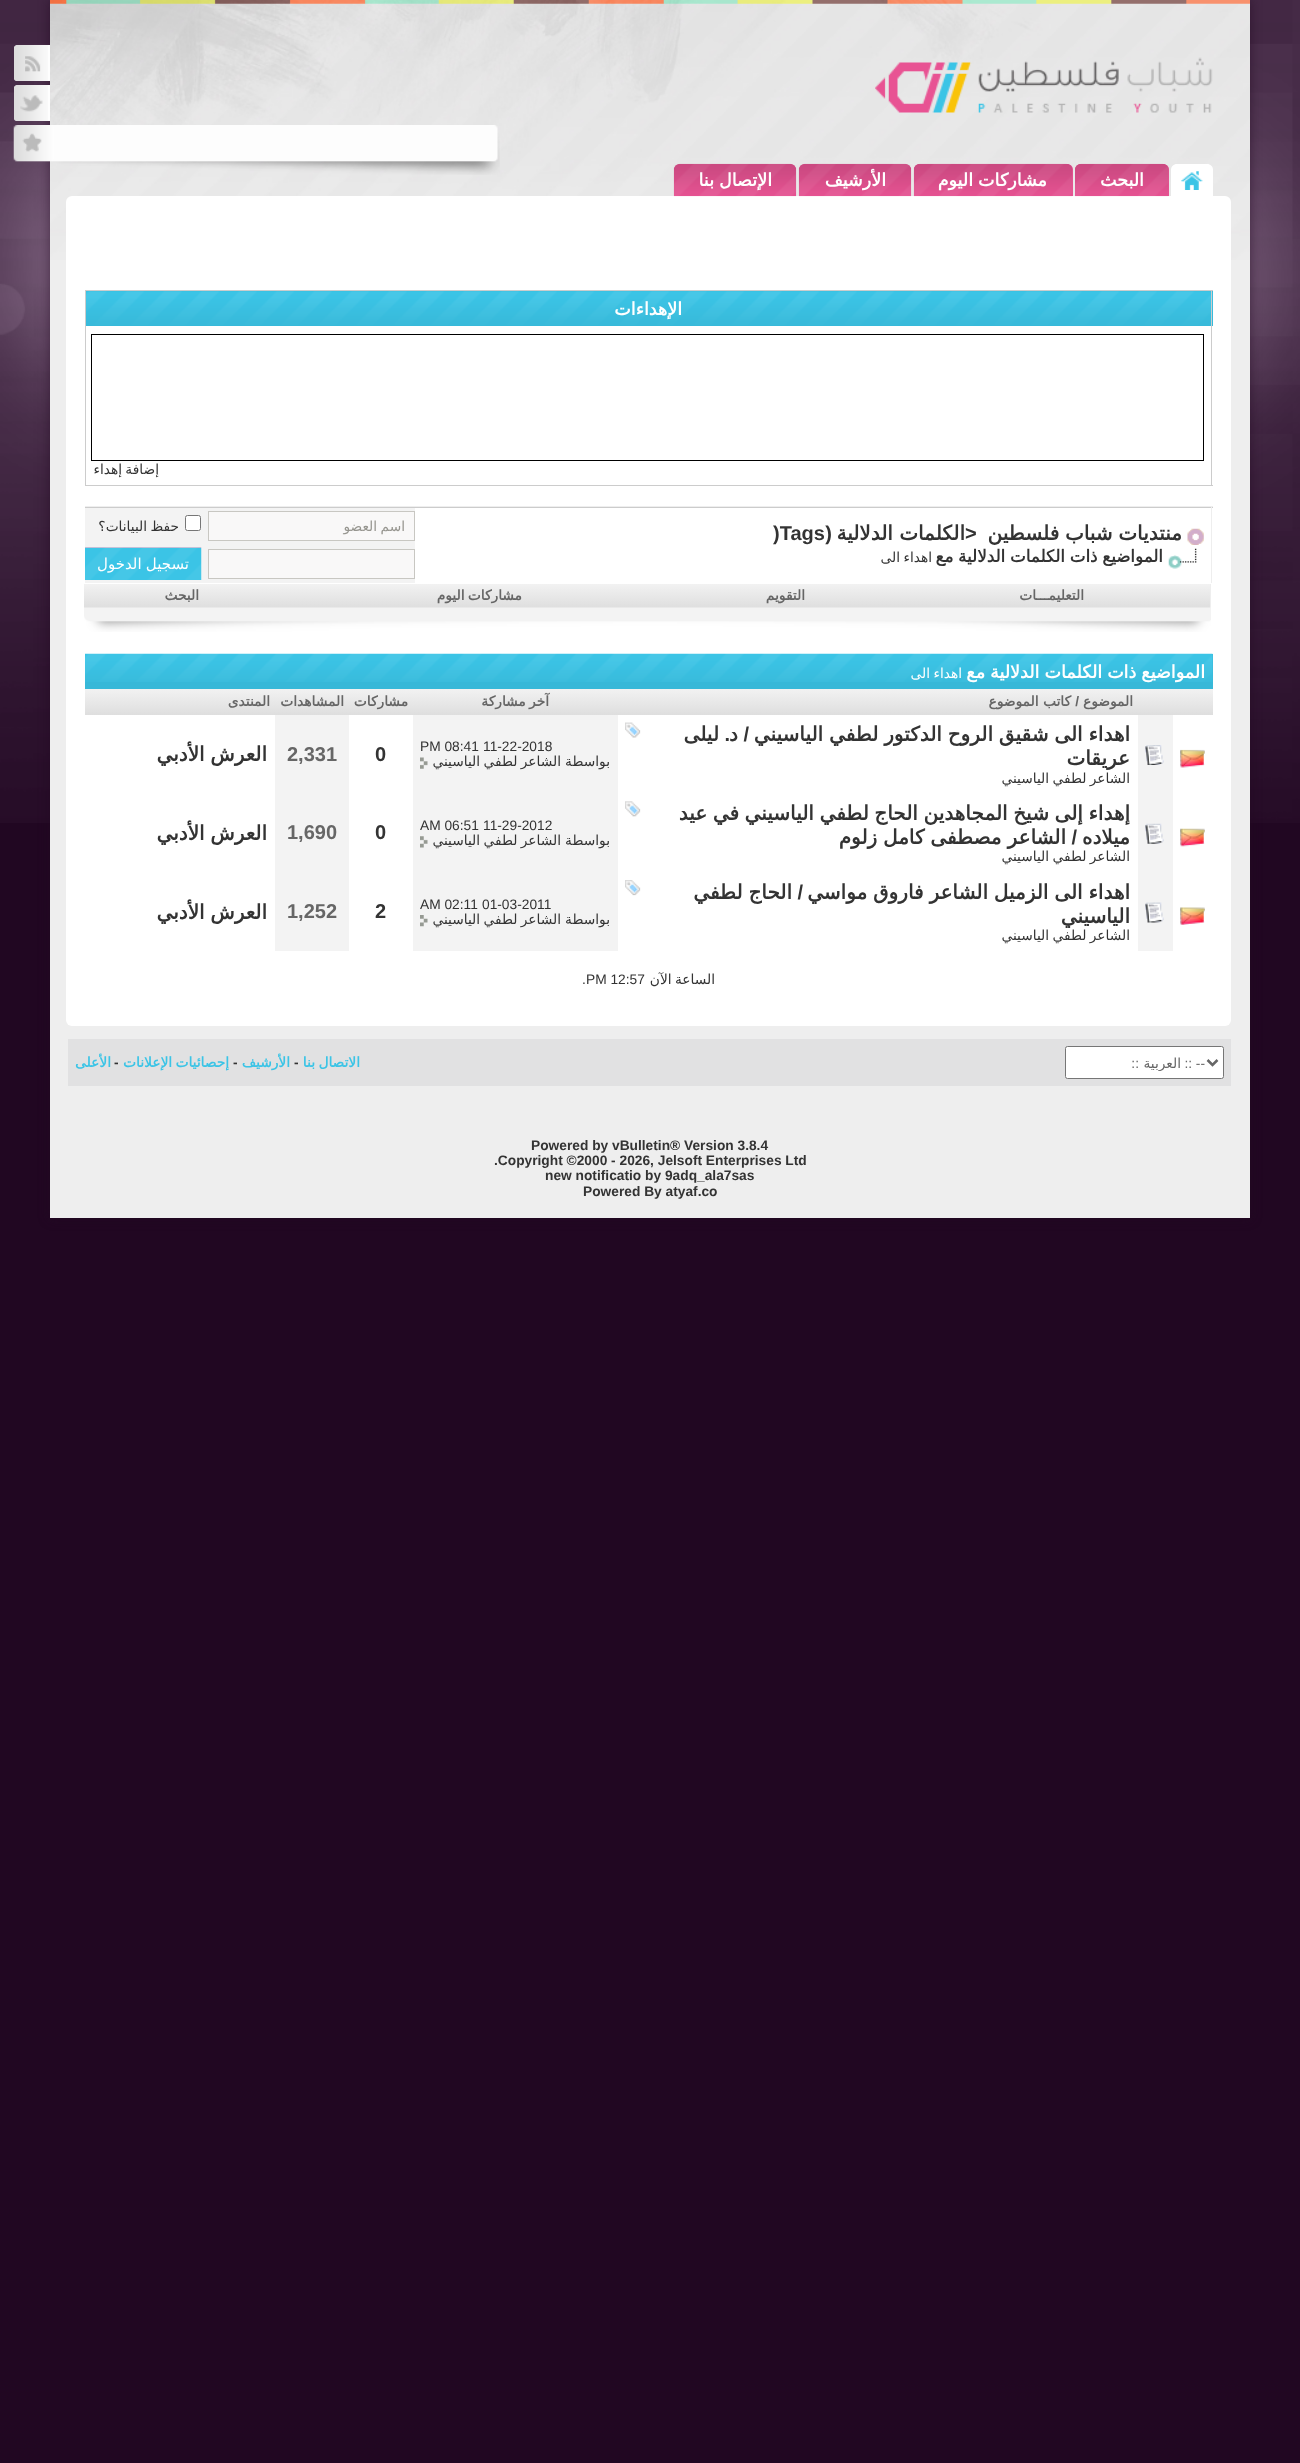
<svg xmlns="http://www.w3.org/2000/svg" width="1300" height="2463">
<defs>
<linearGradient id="g1" gradientUnits="userSpaceOnUse" x1="1052" y1="584" x2="1052" y2="608"><stop offset="0" stop-color="#f2f2f2"/><stop offset="1" stop-color="#dedede"/></linearGradient>
<linearGradient id="g2" gradientUnits="userSpaceOnUse" x1="786" y1="584" x2="786" y2="608"><stop offset="0" stop-color="#f2f2f2"/><stop offset="1" stop-color="#dedede"/></linearGradient>
<linearGradient id="g3" gradientUnits="userSpaceOnUse" x1="479" y1="584" x2="479" y2="608"><stop offset="0" stop-color="#f2f2f2"/><stop offset="1" stop-color="#dedede"/></linearGradient>
<linearGradient id="g4" gradientUnits="userSpaceOnUse" x1="182" y1="584" x2="182" y2="608"><stop offset="0" stop-color="#f2f2f2"/><stop offset="1" stop-color="#dedede"/></linearGradient>
<linearGradient id="g5" gradientUnits="userSpaceOnUse" x1="1175" y1="689" x2="1175" y2="715"><stop offset="0" stop-color="#f2f2f2"/><stop offset="1" stop-color="#dedede"/></linearGradient>
<linearGradient id="g6" gradientUnits="userSpaceOnUse" x1="878" y1="689" x2="878" y2="715"><stop offset="0" stop-color="#f2f2f2"/><stop offset="1" stop-color="#dedede"/></linearGradient>
<linearGradient id="g7" gradientUnits="userSpaceOnUse" x1="515" y1="689" x2="515" y2="715"><stop offset="0" stop-color="#f2f2f2"/><stop offset="1" stop-color="#dedede"/></linearGradient>
<linearGradient id="g8" gradientUnits="userSpaceOnUse" x1="381" y1="689" x2="381" y2="715"><stop offset="0" stop-color="#f2f2f2"/><stop offset="1" stop-color="#dedede"/></linearGradient>
<linearGradient id="g9" gradientUnits="userSpaceOnUse" x1="312" y1="689" x2="312" y2="715"><stop offset="0" stop-color="#f2f2f2"/><stop offset="1" stop-color="#dedede"/></linearGradient>
<linearGradient id="g10" gradientUnits="userSpaceOnUse" x1="180" y1="689" x2="180" y2="715"><stop offset="0" stop-color="#f2f2f2"/><stop offset="1" stop-color="#dedede"/></linearGradient>
<clipPath id="clip1"><rect x="1099" y="1054" width="106" height="17"/></clipPath>
</defs>
<rect width="100%" height="100%" fill="#210722"/>
<image x="0" y="0" width="1300" height="823" href="media/1.png"/>
<rect x="50" width="1200" height="1218" fill="#21072299" filter="blur(6px)"/>
<rect x="50" y="260" width="1200" height="958" fill="#eee"/>
<image x="50" y="3" width="1200" height="257" href="media/2.png"/>
<image x="50" y="0" width="1200" height="4" href="media/3.png"/>
<image x="875" y="57" width="338" height="56" href="media/4.png"/>
<path d="M18 45h32v36h-32c-2 0-4-2-4-4v-28c0-2 2-4 4-4z" fill="#fefefe"/>
<image x="14" y="45" width="34" height="36" href="media/5.png"/>
<image x="25" y="56" width="16" height="16" href="media/6.png"/>
<path d="M18 85h32v36h-32c-2 0-4-2-4-4v-28c0-2 2-4 4-4z" fill="#fefefe"/>
<image x="14" y="85" width="34" height="36" href="media/7.png"/>
<image x="20" y="95" width="23" height="17" href="media/8.png"/>
<image x="13" y="125" width="487" height="50" href="media/9.png"/>
<path d="M1177 164h30c3.5 0 6 2.5 6 6v26h-42v-26c0-3.5 2.5-6 6-6z" fill="#fff"/>
<image x="1181" y="171" width="22" height="19" href="media/10.png"/>
<path d="M1081 164h82c3.5 0 6 2.5 6 6v26h-94v-26c0-3.5 2.5-6 6-6z" fill="#e85393"/>
<rect x="66" y="196" width="1165" height="830" rx="6" fill="#fff"/>
<image x="1075" y="163" width="94" height="34" href="media/11.png"/>
<text x="1144" y="186" style="font-family:DejaVu Sans;font-size:17.5px;font-weight:bold;direction:rtl;fill:#fff">البحث</text>
<path d="M920 164h147c3.5 0 6 2.5 6 6v26h-159v-26c0-3.5 2.5-6 6-6z" fill="#e85393"/>
<image x="913" y="163" width="160" height="34" href="media/12.png"/>
<text x="1047" y="186" word-spacing="-0.5" style="font-family:DejaVu Sans;font-size:17.5px;font-weight:bold;direction:rtl;fill:#fff">مشاركات اليوم</text>
<image x="798" y="163" width="114" height="34" href="media/13.png"/>
<text x="886" y="186" style="font-family:DejaVu Sans;font-size:17.5px;font-weight:bold;direction:rtl;fill:#fff">الأرشيف</text>
<image x="673" y="163" width="124" height="34" href="media/14.png"/>
<text x="772" y="186" word-spacing="-0.5" style="font-family:DejaVu Sans;font-size:17.5px;font-weight:bold;direction:rtl;fill:#fff">الإتصال بنا</text>
<rect x="86" y="290" width="1127" height="1" fill="#ccc"/>
<rect x="86" y="291" width="1127" height="35" fill="#37b8d8"/>
<image x="86" y="291" width="1127" height="35" href="media/15.png"/>
<rect x="1211" y="290" width="1" height="196" fill="#ccc"/>
<rect x="85" y="485" width="1128" height="1" fill="#ccc"/>
<rect x="85" y="290" width="1" height="196" fill="#ccc"/>
<text x="682" y="315" style="font-family:DejaVu Sans;font-size:17.5px;font-weight:bold;direction:rtl;fill:#fff">الإهداءات</text>
<rect x="91.5" y="334.5" width="1112" height="126" fill="none" stroke="#000"/>
<text x="159" y="474" word-spacing="-1" style="font-family:DejaVu Sans;font-size:13.75px;direction:rtl;fill:#333">إضافة إهداء</text>
<rect x="85" y="507" width="1128" height="1" fill="#ccc"/>
<rect x="85" y="506" width="1128" height="1" fill="#eee"/>
<rect x="1211" y="506" width="1" height="77" fill="#eee"/>
<image x="1187" y="528" width="17" height="17" href="media/16.png"/>
<text x="1182" y="540" word-spacing="-0.75" style="font-family:DejaVu Sans;font-size:20px;font-weight:bold;direction:rtl;fill:#333">منتديات شباب فلسطين</text>
<text x="965" y="540" style="font-family:Liberation Sans;font-size:20px;font-weight:bold;fill:#333">&gt;</text>
<text x="965" y="540" style="font-family:DejaVu Sans;font-size:20px;font-weight:bold;direction:rtl;fill:#333">الكلمات الدلالية</text>
<text x="832" y="540" style="font-family:Liberation Sans;font-size:20px;font-weight:bold;direction:rtl;fill:#333">(</text>
<text x="773" y="540" style="font-family:Liberation Sans;font-size:20px;font-weight:bold;fill:#333">)Tags</text>
<image x="1168" y="548" width="29" height="21" href="media/17.png"/>
<text x="1163" y="562" word-spacing="-0.5" style="font-family:DejaVu Sans;font-size:16.7px;font-weight:bold;direction:rtl;fill:#333">المواضيع ذات الكلمات الدلالية مع</text>
<text x="932" y="562" word-spacing="-1" style="font-family:DejaVu Sans;font-size:13.75px;direction:rtl;fill:#333">اهداء الى</text>
<rect x="85" y="508" width="330" height="75" fill="#f3f3f3"/>
<rect x="208.5" y="511.5" width="206" height="29" fill="#f9f8f8" stroke="#c8c7c2"/>
<text x="405" y="531" word-spacing="-1" style="font-family:DejaVu Sans;font-size:13.75px;direction:rtl;fill:#96958f">اسم العضو</text>
<rect x="185.5" y="515.5" width="15" height="15" rx="2" fill="#fff" stroke="#767676"/>
<text x="179" y="531" word-spacing="-1" style="font-family:DejaVu Sans;font-size:13.75px;direction:rtl;fill:#333">حفظ البيانات؟</text>
<rect x="208.5" y="549.5" width="206" height="29" fill="#f9f8f8" stroke="#c8c7c2"/>
<image x="85" y="547" width="117" height="33" href="media/18.png"/>
<text x="189" y="569" word-spacing="-0.5" style="font-family:DejaVu Sans;font-size:15px;direction:rtl;fill:#fff">تسجيل الدخول</text>
<rect x="1210" y="584" width="1" height="24" fill="#eee"/>
<rect x="893" y="584" width="317" height="24" fill="url(#g1)"/>
<text x="1084" y="600" style="font-family:DejaVu Sans;font-size:13.75px;font-weight:bold;direction:rtl;fill:#666">التعليمـــات</text>
<rect x="679" y="584" width="214" height="24" fill="url(#g2)"/>
<text x="805" y="600" style="font-family:DejaVu Sans;font-size:13.75px;font-weight:bold;direction:rtl;fill:#666">التقويم</text>
<rect x="280" y="584" width="399" height="24" fill="url(#g3)"/>
<text x="522" y="600" word-spacing="-1" style="font-family:DejaVu Sans;font-size:13.75px;font-weight:bold;direction:rtl;fill:#666">مشاركات اليوم</text>
<rect x="84" y="584" width="196" height="24" fill="url(#g4)"/>
<text x="199" y="600" style="font-family:DejaVu Sans;font-size:13.75px;font-weight:bold;direction:rtl;fill:#666">البحث</text>
<image x="84" y="607" width="1127" height="25" href="media/19.png"/>
<rect x="85" y="654" width="1128" height="35" fill="#37b8d8"/>
<image x="85" y="653" width="1128" height="29" href="media/20.png"/>
<text x="1205" y="678" word-spacing="-0.5" style="font-family:DejaVu Sans;font-size:17.5px;font-weight:bold;direction:rtl;fill:#fff">المواضيع ذات الكلمات الدلالية مع</text>
<text x="962" y="678" word-spacing="-1" style="font-family:DejaVu Sans;font-size:13.75px;direction:rtl;fill:#fff">اهداء الى</text>
<rect x="1138" y="689" width="75" height="26" fill="url(#g5)"/>
<rect x="618" y="689" width="520" height="26" fill="url(#g6)"/>
<text x="1133" y="706" style="font-family:DejaVu Sans;font-size:13.75px;font-weight:bold;direction:rtl;fill:#666">الموضوع</text>
<text x="1079" y="706" style="font-family:Liberation Sans;font-size:13.75px;font-weight:bold;direction:rtl;fill:#666">/</text>
<text x="1071" y="706" style="font-family:DejaVu Sans;font-size:13.75px;font-weight:bold;direction:rtl;fill:#666">كاتب الموضوع</text>
<rect x="413" y="689" width="205" height="26" fill="url(#g7)"/>
<text x="549" y="706" word-spacing="-1" style="font-family:DejaVu Sans;font-size:13.75px;font-weight:bold;direction:rtl;fill:#666">آخر مشاركة</text>
<rect x="349" y="689" width="64" height="26" fill="url(#g8)"/>
<text x="408" y="706" style="font-family:DejaVu Sans;font-size:13.75px;font-weight:bold;direction:rtl;fill:#666">مشاركات</text>
<rect x="275" y="689" width="74" height="26" fill="url(#g9)"/>
<text x="344" y="706" style="font-family:DejaVu Sans;font-size:13.75px;font-weight:bold;direction:rtl;fill:#666">المشاهدات</text>
<rect x="85" y="689" width="190" height="26" fill="url(#g10)"/>
<text x="270" y="706" style="font-family:DejaVu Sans;font-size:13.75px;font-weight:bold;direction:rtl;fill:#666">المنتدى</text>
<image x="1180" y="749" width="25" height="19" href="media/21.png"/>
<rect x="1138" y="715" width="35" height="236" fill="#f3f3f3"/>
<image x="1145" y="745" width="19" height="20" href="media/22.png"/>
<text x="1130" y="741" word-spacing="-0.5" style="font-family:DejaVu Sans;font-size:20px;font-weight:bold;direction:rtl;fill:#333">اهداء الى شقيق الروح الدكتور لطفي الياسيني</text>
<text x="749" y="741" style="font-family:Liberation Sans;font-size:20px;font-weight:bold;direction:rtl;fill:#333">/</text>
<text x="738" y="741" style="font-family:DejaVu Sans;font-size:20px;font-weight:bold;direction:rtl;fill:#333">د</text>
<text x="730" y="741" style="font-family:Liberation Sans;font-size:20px;font-weight:bold;direction:rtl;fill:#333">.</text>
<text x="719" y="741" style="font-family:DejaVu Sans;font-size:20px;font-weight:bold;direction:rtl;fill:#333">ليلى</text>
<image x="625" y="722" width="16" height="16" href="media/23.png"/>
<text x="1130" y="765" style="font-family:DejaVu Sans;font-size:20px;font-weight:bold;direction:rtl;fill:#333">عريقات</text>
<text x="1130" y="783" word-spacing="-1" style="font-family:DejaVu Sans;font-size:13.75px;direction:rtl;fill:#333">الشاعر لطفي الياسيني</text>
<rect x="413" y="715" width="205" height="236" fill="#f3f3f3"/>
<text x="483" y="751" style="font-family:Liberation Sans;font-size:13.75px;fill:#333">11-22-2018</text>
<text x="420" y="751" style="font-family:Liberation Sans;font-size:13.75px;fill:#333">PM 08:41</text>
<text x="610" y="766" style="font-family:DejaVu Sans;font-size:13.75px;direction:rtl;fill:#333">بواسطة</text>
<text x="561" y="766" word-spacing="-1" style="font-family:DejaVu Sans;font-size:13.75px;direction:rtl;fill:#333">الشاعر لطفي الياسيني</text>
<image x="420" y="757" width="8" height="12" href="media/24.png"/>
<text x="375" y="761" style="font-family:Liberation Sans;font-size:20px;font-weight:bold;fill:#333">0</text>
<rect x="275" y="715" width="74" height="236" fill="#f3f3f3"/>
<text x="287" y="761" style="font-family:Liberation Sans;font-size:20px;font-weight:bold;fill:#666">2,331</text>
<text x="267" y="761" word-spacing="-0.75" style="font-family:DejaVu Sans;font-size:20px;font-weight:bold;direction:rtl;fill:#333">العرش الأدبي</text>
<image x="1180" y="828" width="25" height="19" href="media/25.png"/>
<image x="1145" y="823" width="19" height="21" href="media/26.png"/>
<text x="1130" y="820" word-spacing="-0.75" style="font-family:DejaVu Sans;font-size:20px;font-weight:bold;direction:rtl;fill:#333">إهداء إلى شيخ المجاهدين الحاج لطفي الياسيني في عيد</text>
<image x="625" y="801" width="16" height="16" href="media/27.png"/>
<text x="1130" y="844" style="font-family:DejaVu Sans;font-size:20px;font-weight:bold;direction:rtl;fill:#333">ميلاده</text>
<text x="1077" y="844" style="font-family:Liberation Sans;font-size:20px;font-weight:bold;direction:rtl;fill:#333">/</text>
<text x="1066" y="844" word-spacing="-0.5" style="font-family:DejaVu Sans;font-size:20px;font-weight:bold;direction:rtl;fill:#333">الشاعر مصطفى كامل زلوم</text>
<text x="1130" y="861" word-spacing="-1" style="font-family:DejaVu Sans;font-size:13.75px;direction:rtl;fill:#333">الشاعر لطفي الياسيني</text>
<text x="483" y="830" style="font-family:Liberation Sans;font-size:13.75px;fill:#333">11-29-2012</text>
<text x="420" y="830" style="font-family:Liberation Sans;font-size:13.75px;fill:#333">AM 06:51</text>
<text x="610" y="845" style="font-family:DejaVu Sans;font-size:13.75px;direction:rtl;fill:#333">بواسطة</text>
<text x="561" y="845" word-spacing="-1" style="font-family:DejaVu Sans;font-size:13.75px;direction:rtl;fill:#333">الشاعر لطفي الياسيني</text>
<image x="420" y="836" width="8" height="12" href="media/28.png"/>
<text x="375" y="839" style="font-family:Liberation Sans;font-size:20px;font-weight:bold;fill:#333">0</text>
<text x="287" y="839" style="font-family:Liberation Sans;font-size:20px;font-weight:bold;fill:#666">1,690</text>
<text x="267" y="840" word-spacing="-0.75" style="font-family:DejaVu Sans;font-size:20px;font-weight:bold;direction:rtl;fill:#333">العرش الأدبي</text>
<image x="1180" y="907" width="25" height="18" href="media/29.png"/>
<image x="1145" y="902" width="19" height="21" href="media/30.png"/>
<text x="1130" y="899" word-spacing="-0.5" style="font-family:DejaVu Sans;font-size:20px;font-weight:bold;direction:rtl;fill:#333">اهداء الى الزميل الشاعر فاروق مواسي</text>
<text x="803" y="899" style="font-family:Liberation Sans;font-size:20px;font-weight:bold;direction:rtl;fill:#333">/</text>
<text x="792" y="899" word-spacing="-0.5" style="font-family:DejaVu Sans;font-size:20px;font-weight:bold;direction:rtl;fill:#333">الحاج لطفي</text>
<image x="625" y="880" width="16" height="16" href="media/31.png"/>
<text x="1130" y="923" style="font-family:DejaVu Sans;font-size:20px;font-weight:bold;direction:rtl;fill:#333">الياسيني</text>
<text x="1130" y="940" word-spacing="-1" style="font-family:DejaVu Sans;font-size:13.75px;direction:rtl;fill:#333">الشاعر لطفي الياسيني</text>
<text x="482" y="909" style="font-family:Liberation Sans;font-size:13.75px;fill:#333">01-03-2011</text>
<text x="420" y="909" style="font-family:Liberation Sans;font-size:13.75px;fill:#333">AM 02:11</text>
<text x="610" y="924" style="font-family:DejaVu Sans;font-size:13.75px;direction:rtl;fill:#333">بواسطة</text>
<text x="561" y="924" word-spacing="-1" style="font-family:DejaVu Sans;font-size:13.75px;direction:rtl;fill:#333">الشاعر لطفي الياسيني</text>
<image x="420" y="915" width="8" height="12" href="media/32.png"/>
<text x="375" y="918" style="font-family:Liberation Sans;font-size:20px;font-weight:bold;fill:#333">2</text>
<text x="287" y="918" style="font-family:Liberation Sans;font-size:20px;font-weight:bold;fill:#666">1,252</text>
<text x="267" y="919" word-spacing="-0.75" style="font-family:DejaVu Sans;font-size:20px;font-weight:bold;direction:rtl;fill:#333">العرش الأدبي</text>
<text x="715" y="984" word-spacing="-1" style="font-family:DejaVu Sans;font-size:13.75px;direction:rtl;fill:#333">الساعة الآن</text>
<text x="586" y="984" style="font-family:Liberation Sans;font-size:13.75px;fill:#333">PM 12:57</text>
<text x="582" y="984" style="font-family:Liberation Sans;font-size:13.75px;fill:#333">.</text>
<rect x="68" y="1039" width="1163" height="47" fill="#e1e1e2"/>
<rect x="1065.5" y="1046.5" width="158" height="32" rx="2" fill="#fff" stroke="#767676"/>
<path d="M1207.5 1060l5 5l5-5" fill="none" stroke="#666" stroke-width="2.5"/>
<text x="1205" y="1068" style="font-family:Liberation Sans;font-size:13.75px;direction:rtl;fill:#666">-- ::</text>
<g clip-path="url(#clip1)">
<text x="1181" y="1068" style="font-family:DejaVu Sans;font-size:13.75px;direction:rtl;fill:#666">العربية</text>
</g>
<text x="1139" y="1068" style="font-family:Liberation Sans;font-size:13.75px;direction:rtl;fill:#666">::</text>
<text x="360" y="1067" word-spacing="-1" style="font-family:DejaVu Sans;font-size:13.75px;font-weight:bold;direction:rtl;fill:#3bc4e6">الاتصال بنا</text>
<text x="294" y="1067" style="font-family:Liberation Sans;font-size:13.75px;font-weight:bold;fill:#333">-</text>
<text x="290" y="1067" style="font-family:DejaVu Sans;font-size:13.75px;font-weight:bold;direction:rtl;fill:#3bc4e6">الأرشيف</text>
<text x="233" y="1067" style="font-family:Liberation Sans;font-size:13.75px;font-weight:bold;fill:#333">-</text>
<text x="229" y="1067" word-spacing="-1" style="font-family:DejaVu Sans;font-size:13.75px;font-weight:bold;direction:rtl;fill:#3bc4e6">إحصائيات الإعلانات</text>
<text x="114" y="1067" style="font-family:Liberation Sans;font-size:13.75px;font-weight:bold;fill:#333">-</text>
<text x="111" y="1067" style="font-family:DejaVu Sans;font-size:13.75px;font-weight:bold;direction:rtl;fill:#3bc4e6">الأعلى</text>
<text x="531" y="1150" style="font-family:Liberation Sans;font-size:13.75px;font-weight:bold;fill:#333">Powered by vBulletin® Version 3.8.4</text>
<text x="494" y="1165" style="font-family:Liberation Sans;font-size:13.75px;font-weight:bold;fill:#333">.Copyright ©2000 - 2026, Jelsoft Enterprises Ltd</text>
<text x="545" y="1180" style="font-family:Liberation Sans;font-size:13.75px;font-weight:bold;fill:#333">new notificatio by 9adq_ala7sas</text>
<text x="583" y="1196" style="font-family:Liberation Sans;font-size:13.75px;font-weight:bold;fill:#333">Powered By atyaf.co</text>
</svg>
